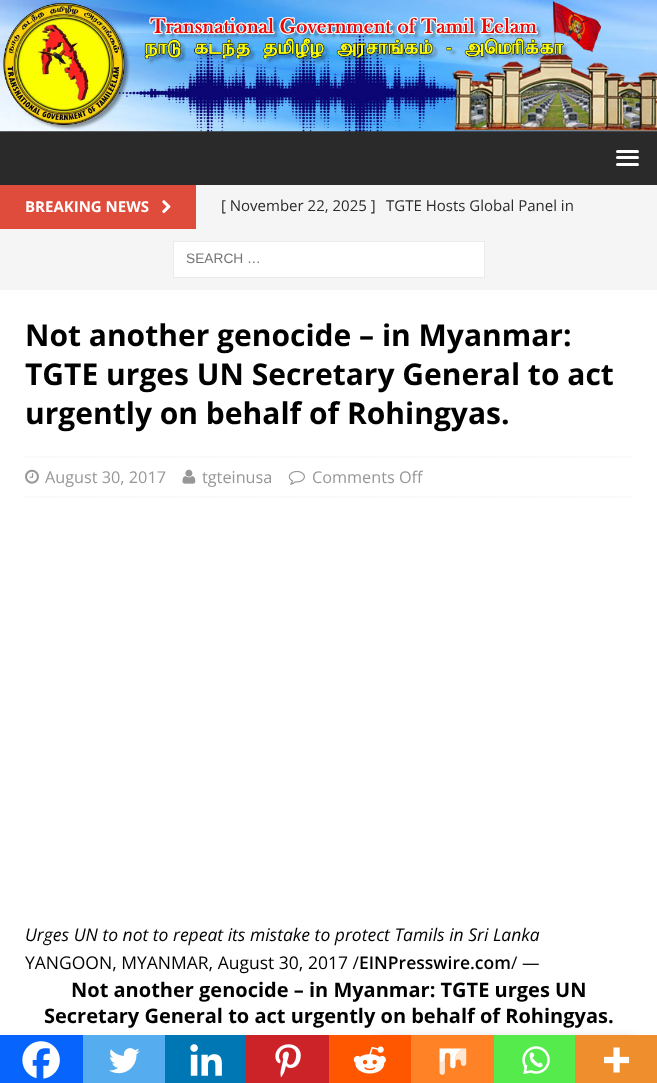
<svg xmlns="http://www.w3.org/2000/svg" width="657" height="1083">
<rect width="100%" height="100%" fill="#2a2a2a"/>
<image x="0" y="0" width="657" height="132" href="media/1.png"/>
<rect x="616" y="150" width="23" height="3" rx="1.5" fill="#fff"/>
<rect x="616" y="156" width="23" height="3" rx="1.5" fill="#fff"/>
<rect x="616" y="163" width="23" height="3" rx="1.5" fill="#fff"/>
<rect y="185" width="657" height="105" fill="#f5f5f5"/>
<rect y="185" width="196" height="44" fill="#e04c3c"/>
<text x="25" y="212" style="font-family:Open Sans;font-size:15px;font-weight:bold;fill:#fff">BREAKING NEWS</text>
<image x="162" y="200" width="9" height="14" href="media/2.png"/>
<text x="221" y="211" style="font-family:Open Sans;font-size:15px;fill:#2a2a2a">[ November 22, 2025 ]</text>
<text x="386" y="211" style="font-family:Open Sans;font-size:15px;fill:#2a2a2a">TGTE Hosts Global Panel in</text>
<rect x="173.5" y="241.5" width="311" height="36" fill="#fff" stroke="#ebebeb"/>
<text x="186" y="263" style="font-family:Liberation Sans;font-size:13.75px;fill:#757575">SEARCH …</text>
<rect y="290" width="657" height="745" fill="#fff"/>
<text x="25" y="346" style="font-family:Open Sans;font-size:30px;font-weight:bold;fill:#000">Not another genocide – in Myanmar:</text>
<text x="25" y="385" style="font-family:Open Sans;font-size:30px;font-weight:bold;fill:#000">TGTE urges UN Secretary General to act</text>
<text x="25" y="424" style="font-family:Open Sans;font-size:30px;font-weight:bold;fill:#000">urgently on behalf of Rohingyas.</text>
<path d="M25 457h607.5" fill="none" stroke="#ebebeb" stroke-width="1.2" stroke-dasharray="1.25 1.25"/>
<path d="M25 497h607.5" fill="none" stroke="#ebebeb" stroke-width="1.2" stroke-dasharray="1.25 1.25"/>
<image x="25" y="469" width="14" height="15" href="media/3.png"/>
<text x="45" y="483" style="font-family:Open Sans;font-size:16.25px;fill:#979797">August 30, 2017</text>
<image x="182" y="469" width="14" height="15" href="media/4.png"/>
<text x="202" y="483" style="font-family:Open Sans;font-size:16.25px;fill:#979797">tgteinusa</text>
<image x="288" y="470" width="17" height="15" href="media/5.png"/>
<text x="312" y="483" style="font-family:Open Sans;font-size:16.25px;fill:#979797">Comments Off</text>
<text x="25" y="941" style="font-family:Open Sans;font-size:17.5px;font-style:italic;fill:#000">Urges UN to not to repeat its mistake to protect Tamils in Sri Lanka</text>
<text x="25" y="969" style="font-family:Open Sans;font-size:17.5px;fill:#000">YANGOON, MYANMAR, August 30, 2017 /</text>
<text x="359" y="969" style="font-family:Open Sans;font-size:17.5px;font-weight:600;fill:#000">EINPresswire.com</text>
<text x="511" y="969" style="font-family:Open Sans;font-size:17.5px;fill:#000">/ —</text>
<text x="71" y="997" style="font-family:Open Sans;font-size:20px;font-weight:bold;fill:#000">Not another genocide – in Myanmar: TGTE urges UN</text>
<text x="44" y="1023" style="font-family:Open Sans;font-size:20px;font-weight:bold;fill:#000">Secretary General to act urgently on behalf of Rohingyas.</text>
<rect y="1035" width="83" height="48" fill="#0765fe"/>
<image x="22" y="1041" width="38" height="38" href="media/6.png"/>
<rect x="83" y="1035" width="82" height="48" fill="#55acee"/>
<image x="109" y="1048" width="31" height="26" href="media/7.png"/>
<rect x="165" y="1035" width="81" height="48" fill="#0077b5"/>
<image x="190" y="1044" width="32" height="32" href="media/8.png"/>
<rect x="246" y="1035" width="83" height="48" fill="#cc2329"/>
<image x="275" y="1044" width="26" height="34" href="media/9.png"/>
<rect x="375" y="1040" width="258" height="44" fill="#0000004d" filter="blur(5.5px)"/>
<rect x="329" y="1035" width="82" height="48" fill="#ff5700"/>
<image x="353" y="1046" width="33" height="28" href="media/10.png"/>
<rect x="411" y="1035" width="83" height="48" fill="#ff8226"/>
<image x="439" y="1048" width="28" height="27" href="media/11.png"/>
<rect x="494" y="1035" width="81" height="48" fill="#55eb4c"/>
<image x="522" y="1046" width="28" height="28" href="media/12.png"/>
<rect x="575" y="1035" width="82" height="48" fill="#ee8e2d"/>
<image x="604" y="1047" width="26" height="26" href="media/13.png"/>
</svg>
